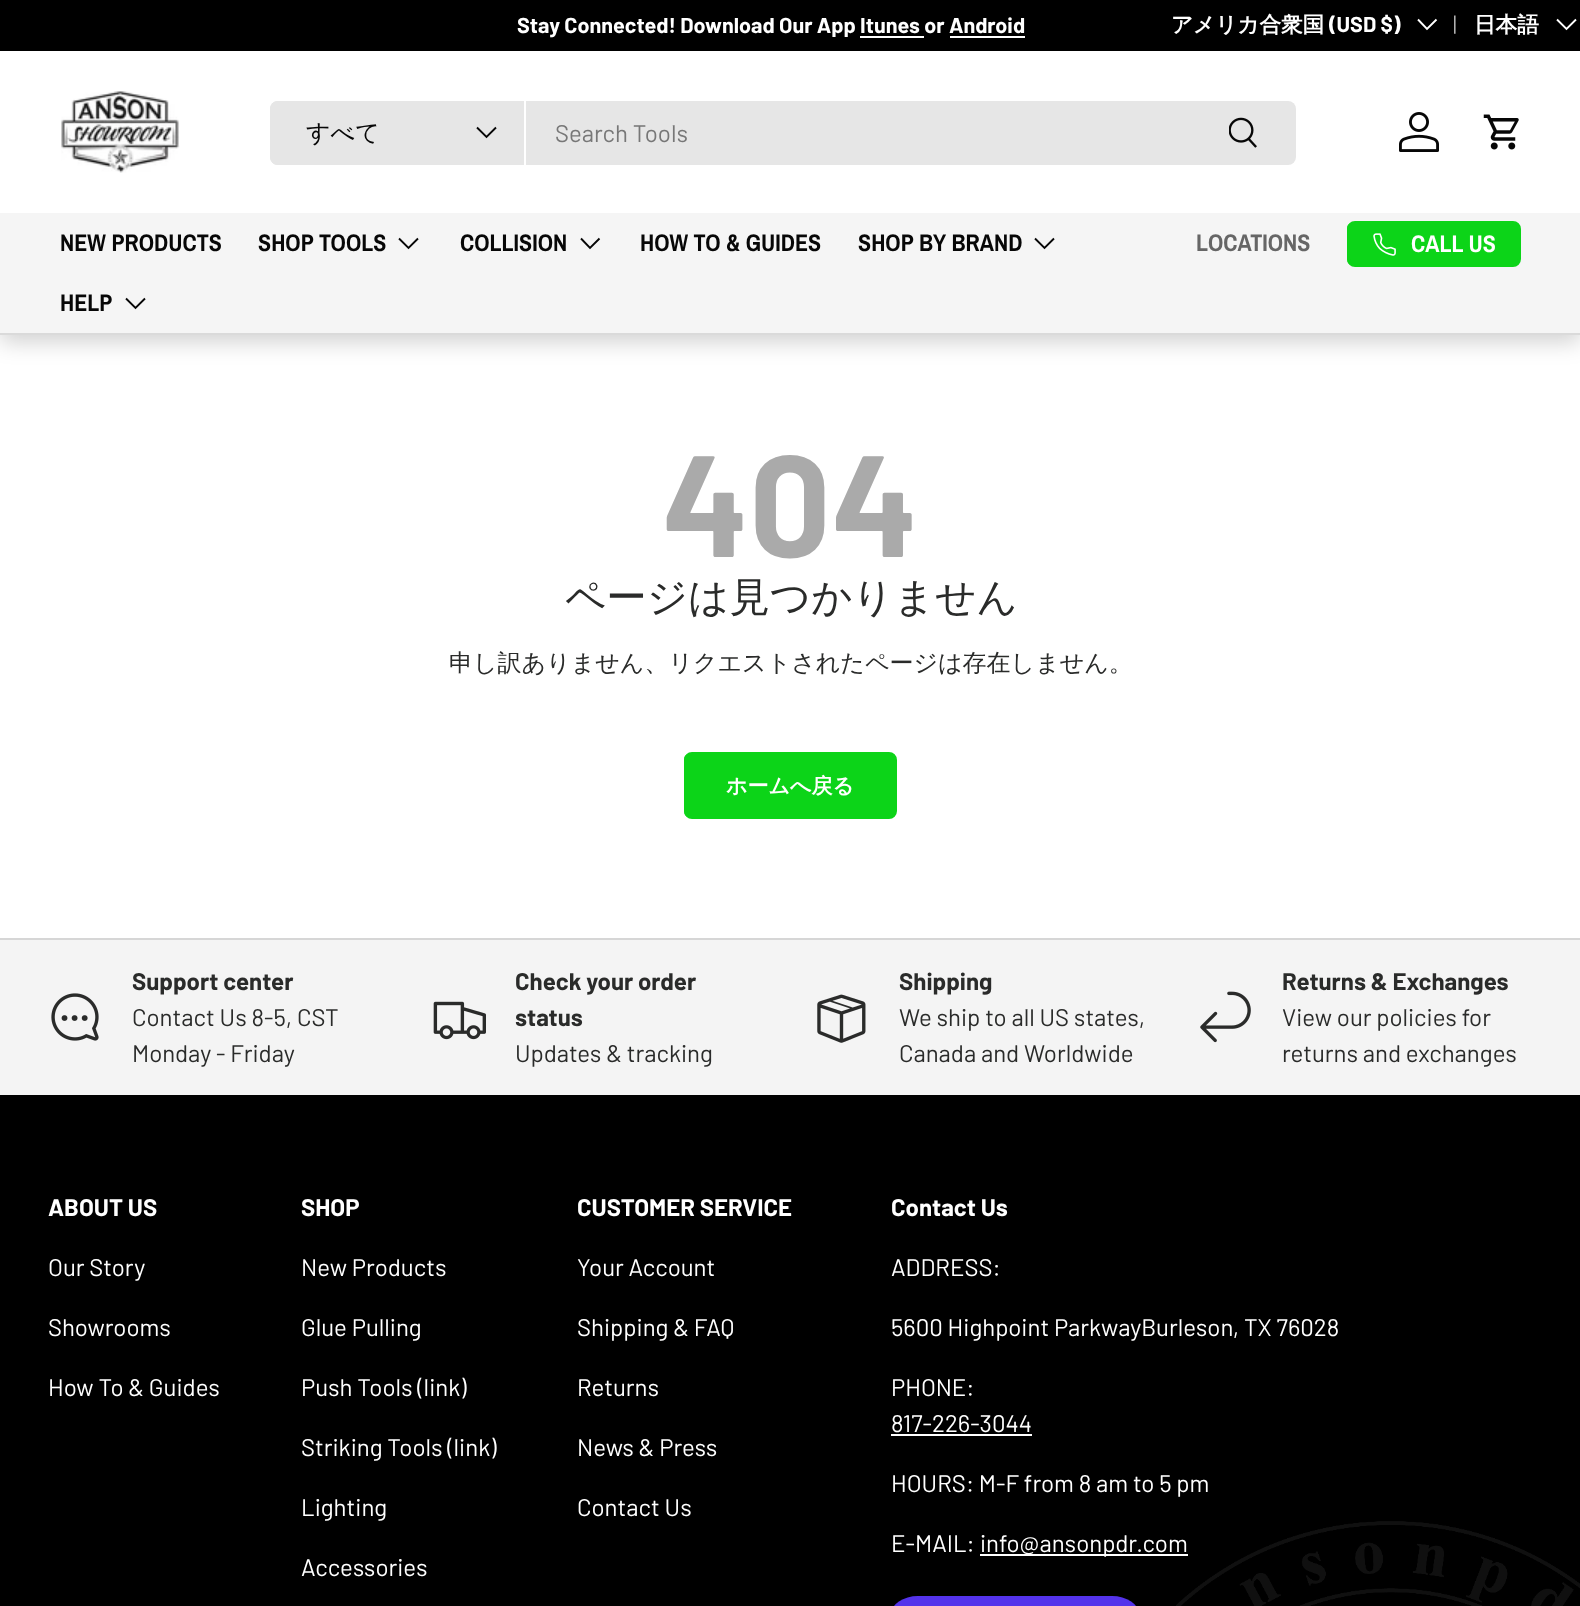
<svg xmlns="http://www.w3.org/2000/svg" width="1580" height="1606">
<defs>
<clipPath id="clip1"><rect x="1347" y="221" width="174" height="46" rx="8"/></clipPath>
<linearGradient id="g1" gradientUnits="userSpaceOnUse" x1="1024" y1="183" x2="1508" y2="304"><stop offset="0.6" stop-color="#3ddc47"/><stop offset="0.6" stop-color="#0cd418"/><stop offset="1" stop-color="#0cd418"/></linearGradient>
<clipPath id="clip2"><rect x="684" y="752" width="213" height="67" rx="8"/></clipPath>
<linearGradient id="g2" gradientUnits="userSpaceOnUse" x1="284" y1="711" x2="883" y2="860"><stop offset="0.6" stop-color="#3ddc47"/><stop offset="0.6" stop-color="#0cd418"/><stop offset="1" stop-color="#0cd418"/></linearGradient>
</defs>
<rect width="100%" height="100%" fill="#fff"/>
<rect y="59" width="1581" height="283" fill="#0000002e" filter="blur(11px)"/>
<rect width="1580" height="51" fill="#000"/>
<text x="517" y="33" style="font-family:Barlow;font-size:21.6px;font-weight:bold;fill:#fff">Stay Connected! Download Our App Itunes or Android</text>
<rect x="860" y="36" width="64" height="2" fill="#fff"/>
<rect x="950" y="36" width="75" height="2" fill="#fff"/>
<text x="1171" y="32" style="font-family:WenQuanYi Zen Hei;font-size:21.6px;font-weight:bold;fill:#fff">アメリカ合衆国</text>
<text x="1329" y="32" style="font-family:Barlow;font-size:21.6px;font-weight:bold;fill:#fff">(USD $)</text>
<path d="M1436.5 19.5l-9.5 9.5l-9-9.5" fill="none" stroke="#fff" stroke-width="1.9"/>
<text x="1453" y="32" style="font-family:Barlow;font-size:21.6px;fill:#b3b3b3">|</text>
<text x="1474" y="32" style="font-family:WenQuanYi Zen Hei;font-size:21.6px;font-weight:bold;fill:#fff">日本語</text>
<path d="M1576 19.5l-9.5 9.5l-9.5-9.5" fill="none" stroke="#fff" stroke-width="1.9"/>
<rect y="51" width="1580" height="162" fill="#fff"/>
<rect y="333" width="1580" height="2" fill="#dadada"/>
<image x="61" y="91" width="119" height="82" href="media/1.png"/>
<rect x="270" y="101" width="1026" height="64" rx="8" fill="#e6e6e6"/>
<path d="M278 101h247v64h-247c-4.5 0-8-3.5-8-8v-48c0-4.5 3.5-8 8-8z" fill="#e6e6e6"/>
<rect x="524" y="101" width="2" height="64" fill="#fff"/>
<text x="306" y="141" style="font-family:WenQuanYi Zen Hei;font-size:24px;font-weight:500;fill:#070707">すべて</text>
<path d="M496 127.5l-9.5 9.5l-9.5-9.5" fill="none" stroke="#070707" stroke-width="1.9"/>
<text x="555" y="142" style="font-family:Barlow;font-size:24px;fill:#777">Search Tools</text>
<image x="1229" y="117" width="28" height="31" href="media/2.png"/>
<image x="1399" y="112" width="40" height="40" href="media/3.png"/>
<image x="1483" y="114" width="36" height="36" href="media/4.png"/>
<rect y="213" width="1580" height="120" fill="#f5f5f5"/>
<text x="60" y="251" style="font-family:Archivo Narrow;font-size:24px;font-weight:bold;fill:#070707">NEW PRODUCTS</text>
<text x="258" y="251" style="font-family:Archivo Narrow;font-size:24px;font-weight:bold;fill:#070707">SHOP TOOLS</text>
<path d="M418 238.5l-9.5 9.5l-9.5-9.5" fill="none" stroke="#070707" stroke-width="1.9"/>
<text x="460" y="251" style="font-family:Archivo Narrow;font-size:24px;font-weight:bold;fill:#070707">COLLISION</text>
<path d="M599.5 238.5l-9.5 9.5l-9-9.5" fill="none" stroke="#070707" stroke-width="1.9"/>
<text x="640" y="251" style="font-family:Archivo Narrow;font-size:24px;font-weight:bold;fill:#070707">HOW TO &amp; GUIDES</text>
<text x="858" y="251" style="font-family:Archivo Narrow;font-size:24px;font-weight:bold;fill:#070707">SHOP BY BRAND</text>
<path d="M1054 238.5l-9.5 9.5l-9.5-9.5" fill="none" stroke="#070707" stroke-width="1.9"/>
<text x="60" y="311" style="font-family:Archivo Narrow;font-size:24px;font-weight:bold;fill:#070707">HELP</text>
<path d="M145 298.5l-9.5 9.5l-9.5-9.5" fill="none" stroke="#070707" stroke-width="1.9"/>
<text x="1196" y="251" style="font-family:Archivo Narrow;font-size:24px;font-weight:bold;fill:#666">LOCATIONS</text>
<g clip-path="url(#clip1)">
<rect x="1347" y="224" width="171" height="40" fill="url(#g1)"/>
</g>
<rect x="1348.5" y="222.5" width="171" height="43" rx="6.5" fill="none" stroke="#0cd418" stroke-width="3"/>
<image x="1373" y="233" width="23" height="23" href="media/5.png"/>
<text x="1411" y="252" style="font-family:Archivo Narrow;font-size:24px;font-weight:bold;fill:#fff">CALL US</text>
<text x="662" y="557" style="font-family:Barlow;font-size:144px;font-weight:bold;fill:#aaa">404</text>
<text x="565" y="611" style="font-family:WenQuanYi Zen Hei;font-size:40.4px;font-weight:500;fill:#2a2b2a">ページは見つかりません</text>
<text x="449" y="671" style="font-family:WenQuanYi Zen Hei;font-size:24px;font-weight:500;fill:#2a2b2a">申し訳ありません、リクエストされたページは存在しません。</text>
<g clip-path="url(#clip2)">
<rect x="684" y="755" width="210" height="61" fill="url(#g2)"/>
</g>
<rect x="685.5" y="753.5" width="210" height="64" rx="6.5" fill="none" stroke="#0cd418" stroke-width="3"/>
<text x="726" y="793" style="font-family:WenQuanYi Zen Hei;font-size:21px;font-weight:bold;fill:#fff">ホームへ戻る</text>
<rect y="940" width="1580" height="155" fill="#f4f4f4"/>
<rect y="938" width="1580" height="2" fill="#d6d6d6"/>
<image x="51" y="993" width="48" height="48" href="media/6.png"/>
<text x="132" y="990" style="font-family:Barlow;font-size:24px;font-weight:bold;fill:#2a2b2a">Support center</text>
<text x="132" y="1026" style="font-family:Barlow;font-size:24px;fill:#2a2b2a">Contact Us 8-5, CST</text>
<text x="132" y="1062" style="font-family:Barlow;font-size:24px;fill:#2a2b2a">Monday - Friday</text>
<image x="433" y="1001" width="53" height="39" href="media/7.png"/>
<text x="515" y="990" style="font-family:Barlow;font-size:24px;font-weight:bold;fill:#2a2b2a">Check your order</text>
<text x="515" y="1026" style="font-family:Barlow;font-size:24px;font-weight:bold;fill:#2a2b2a">status</text>
<text x="515" y="1062" style="font-family:Barlow;font-size:24px;fill:#2a2b2a">Updates &amp; tracking</text>
<image x="817" y="994" width="49" height="49" href="media/8.png"/>
<text x="899" y="990" style="font-family:Barlow;font-size:24px;font-weight:bold;fill:#2a2b2a">Shipping</text>
<text x="899" y="1026" style="font-family:Barlow;font-size:24px;fill:#2a2b2a">We ship to all US states,</text>
<text x="899" y="1062" style="font-family:Barlow;font-size:24px;fill:#2a2b2a">Canada and Worldwide</text>
<image x="1200" y="991" width="51" height="52" href="media/9.png"/>
<text x="1282" y="990" style="font-family:Barlow;font-size:24px;font-weight:bold;fill:#2a2b2a">Returns &amp; Exchanges</text>
<text x="1282" y="1026" style="font-family:Barlow;font-size:24px;fill:#2a2b2a">View our policies for</text>
<text x="1282" y="1062" style="font-family:Barlow;font-size:24px;fill:#2a2b2a">returns and exchanges</text>
<rect y="1095" width="1580" height="511" fill="#000"/>
<text x="48" y="1216" style="font-family:Barlow;font-size:24px;font-weight:bold;fill:#fff">ABOUT US</text>
<text x="48" y="1276" style="font-family:Barlow;font-size:24px;fill:#fff">Our Story</text>
<text x="48" y="1336" style="font-family:Barlow;font-size:24px;fill:#fff">Showrooms</text>
<text x="48" y="1396" style="font-family:Barlow;font-size:24px;fill:#fff">How To &amp; Guides</text>
<text x="301" y="1216" style="font-family:Barlow;font-size:24px;font-weight:bold;fill:#fff">SHOP</text>
<text x="301" y="1276" style="font-family:Barlow;font-size:24px;fill:#fff">New Products</text>
<text x="301" y="1336" style="font-family:Barlow;font-size:24px;fill:#fff">Glue Pulling</text>
<text x="301" y="1396" style="font-family:Barlow;font-size:24px;fill:#fff">Push Tools (link)</text>
<text x="301" y="1456" style="font-family:Barlow;font-size:24px;fill:#fff">Striking Tools (link)</text>
<text x="301" y="1516" style="font-family:Barlow;font-size:24px;fill:#fff">Lighting</text>
<text x="301" y="1576" style="font-family:Barlow;font-size:24px;fill:#fff">Accessories</text>
<text x="577" y="1216" style="font-family:Barlow;font-size:24px;font-weight:bold;fill:#fff">CUSTOMER SERVICE</text>
<text x="577" y="1276" style="font-family:Barlow;font-size:24px;fill:#fff">Your Account</text>
<text x="577" y="1336" style="font-family:Barlow;font-size:24px;fill:#fff">Shipping &amp; FAQ</text>
<text x="577" y="1396" style="font-family:Barlow;font-size:24px;fill:#fff">Returns</text>
<text x="577" y="1456" style="font-family:Barlow;font-size:24px;fill:#fff">News &amp; Press</text>
<text x="577" y="1516" style="font-family:Barlow;font-size:24px;fill:#fff">Contact Us</text>
<text x="891" y="1216" style="font-family:Barlow;font-size:24px;font-weight:bold;fill:#fff">Contact Us</text>
<text x="891" y="1276" style="font-family:Barlow;font-size:24px;fill:#fff">ADDRESS:</text>
<text x="891" y="1336" style="font-family:Barlow;font-size:24px;fill:#fff">5600 Highpoint ParkwayBurleson, TX 76028</text>
<text x="891" y="1396" style="font-family:Barlow;font-size:24px;fill:#fff">PHONE:</text>
<text x="891" y="1432" style="font-family:Barlow;font-size:24px;fill:#fff">817-226-3044</text>
<rect x="891" y="1434" width="141" height="2" fill="#fff"/>
<text x="891" y="1492" style="font-family:Barlow;font-size:24px;fill:#fff">HOURS: M-F from 8 am to 5 pm</text>
<text x="891" y="1552" style="font-family:Barlow;font-size:24px;fill:#fff">E-MAIL:</text>
<image x="1176" y="1521" width="404" height="85" href="media/10.png"/>
<rect x="980" y="1554" width="208" height="2" fill="#fff"/>
<text x="980" y="1552" style="font-family:Barlow;font-size:24px;fill:#fff">info@ansonpdr.com</text>
<rect x="891" y="1596" width="248" height="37" rx="27" fill="#5433eb"/>
</svg>
